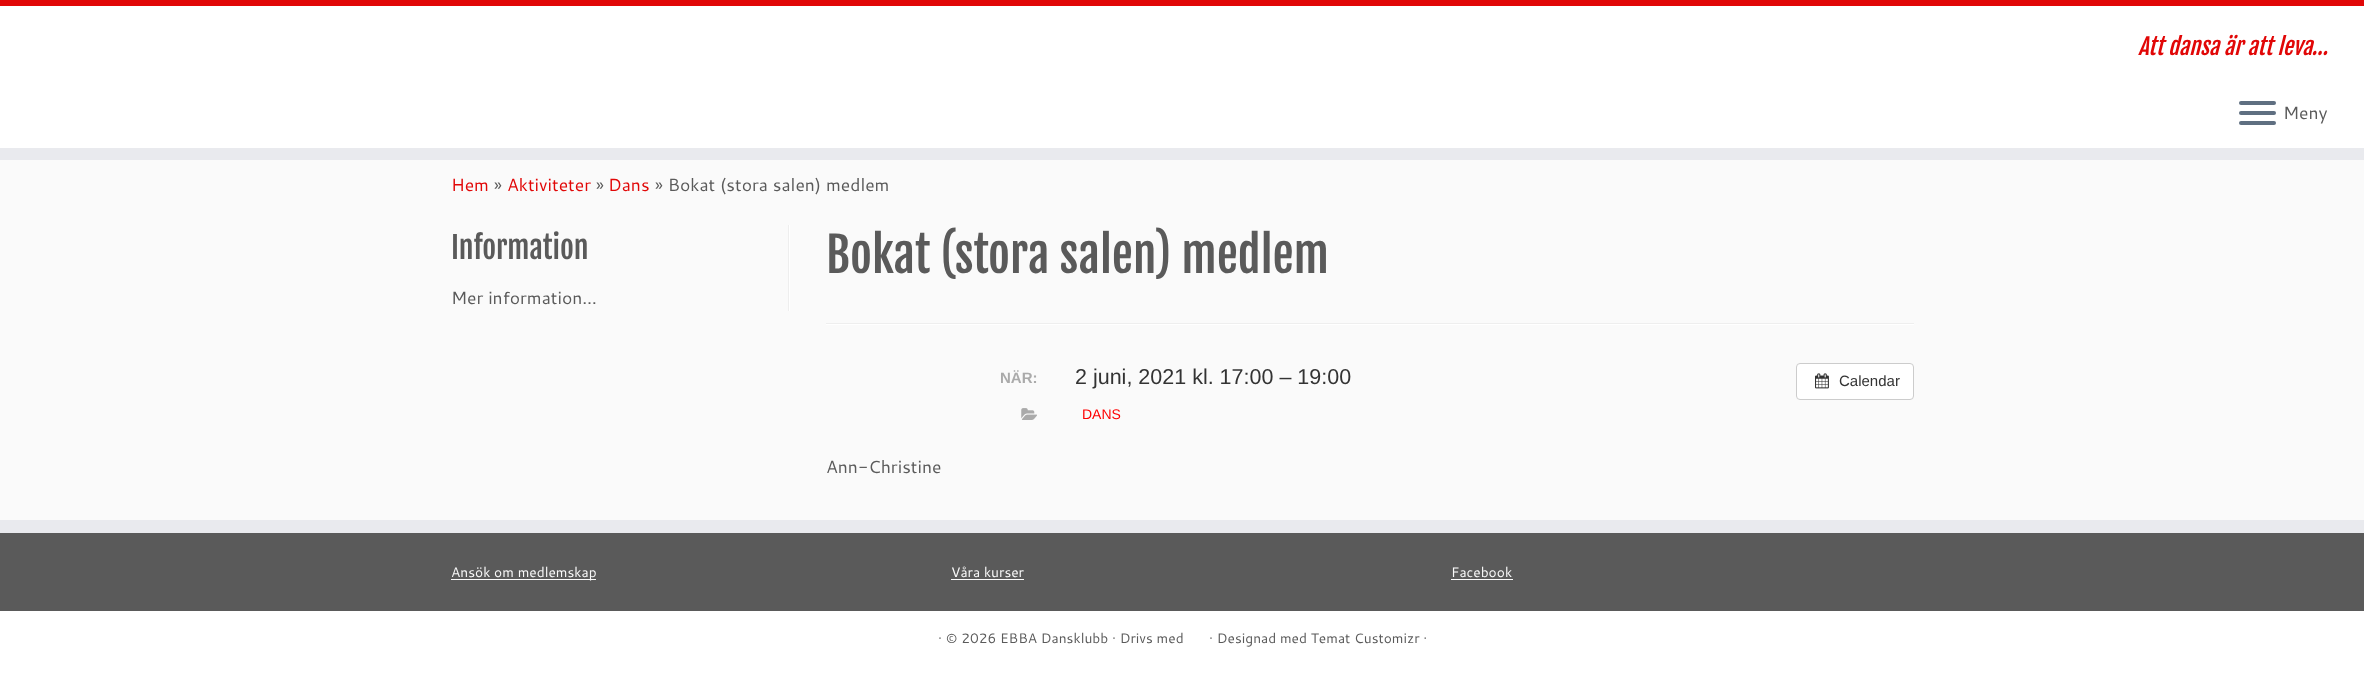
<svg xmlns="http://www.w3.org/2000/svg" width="2364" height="676">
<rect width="100%" height="100%" fill="#fafafa"/>
<rect y="6" width="2364" height="142" fill="#fff"/>
<rect width="2364" height="6" fill="#e10707"/>
<rect y="148" width="2364" height="12" fill="#e9eaee"/>
<text x="2138" y="55" style="font-family:Fjalla One;font-size:22.5px;font-style:italic;fill:#e10707">Att dansa är att leva…</text>
<rect x="2239" y="101" width="37" height="4" rx="2" fill="#5f6f81"/>
<rect x="2239" y="111" width="37" height="4" rx="2" fill="#5f6f81"/>
<rect x="2239" y="121" width="37" height="4" rx="2" fill="#5f6f81"/>
<text x="2283" y="119" style="font-family:Cantarell;font-size:17.5px;fill:#5a5a5a">Meny</text>
<text x="451" y="191" style="font-family:Cantarell;font-size:17.5px;fill:#e10707">Hem</text>
<text x="494" y="191" style="font-family:Cantarell;font-size:17.5px;fill:#5a5a5a">»</text>
<text x="507" y="191" style="font-family:Cantarell;font-size:17.5px;fill:#e10707">Aktiviteter</text>
<text x="596" y="191" style="font-family:Cantarell;font-size:17.5px;fill:#5a5a5a">»</text>
<text x="608" y="191" style="font-family:Cantarell;font-size:17.5px;fill:#e10707">Dans</text>
<text x="655" y="191" style="font-family:Cantarell;font-size:17.5px;fill:#5a5a5a">» Bokat (stora salen) medlem</text>
<rect x="788" y="225" width="1" height="86" fill="#eee"/>
<text x="451" y="259" style="font-family:Fjalla One;font-size:30px;fill:#5a5a5a">Information</text>
<text x="451" y="304" style="font-family:Cantarell;font-size:17.5px;fill:#5a5a5a">Mer information…</text>
<rect x="789" y="225" width="1" height="86" fill="#fff"/>
<text x="826" y="273" style="font-family:Fjalla One;font-size:47.5px;fill:#5a5a5a">Bokat (stora salen) medlem</text>
<rect x="826" y="323" width="1088" height="1" fill="#eee"/>
<rect x="826" y="324" width="1088" height="1" fill="#fff"/>
<text x="1000" y="383" style="font-family:Liberation Sans;font-size:15px;font-weight:bold;fill:#aaa">NÄR:</text>
<text x="1075" y="384" style="font-family:Liberation Sans;font-size:21.5px;fill:#333">2 juni, 2021 kl. 17:00 – 19:00</text>
<image x="1021" y="408" width="16" height="12" href="media/1.png"/>
<text x="1082" y="419" style="font-family:Liberation Sans;font-size:14px;fill:#fe0002">DANS</text>
<rect x="1796.5" y="363.5" width="117" height="36" rx="3.5" fill="#fff" stroke="#ccc"/>
<image x="1815" y="373" width="14" height="16" href="media/2.png"/>
<text x="1839" y="386" style="font-family:Liberation Sans;font-size:15px;fill:#333">Calendar</text>
<text x="826" y="473" style="font-family:Cantarell;font-size:17.5px;fill:#5a5a5a">Ann-Christine</text>
<rect y="533" width="2364" height="78" fill="#5a5a5a"/>
<rect y="520" width="2364" height="13" fill="#e9eaee"/>
<rect x="451" y="579" width="145" height="1" fill="#fafafa"/>
<text x="451" y="577" style="font-family:Cantarell;font-size:13.75px;fill:#fafafa">Ansök om medlemskap</text>
<text x="951" y="577" style="font-family:Cantarell;font-size:13.75px;fill:#fafafa">Våra kurser</text>
<rect x="951" y="579" width="73" height="1" fill="#fafafa"/>
<text x="1451" y="577" style="font-family:Cantarell;font-size:13.75px;fill:#fafafa">Facebook</text>
<rect x="1451" y="579" width="62" height="1" fill="#fafafa"/>
<rect y="611" width="2364" height="65" fill="#fff"/>
<text x="938" y="643" style="font-family:Cantarell;font-size:13.75px;fill:#5a5a5a">· © 2026 EBBA Dansklubb · Drivs med</text>
<text x="1209" y="643" style="font-family:Cantarell;font-size:13.75px;fill:#5a5a5a">· Designad med Temat Customizr ·</text>
</svg>
